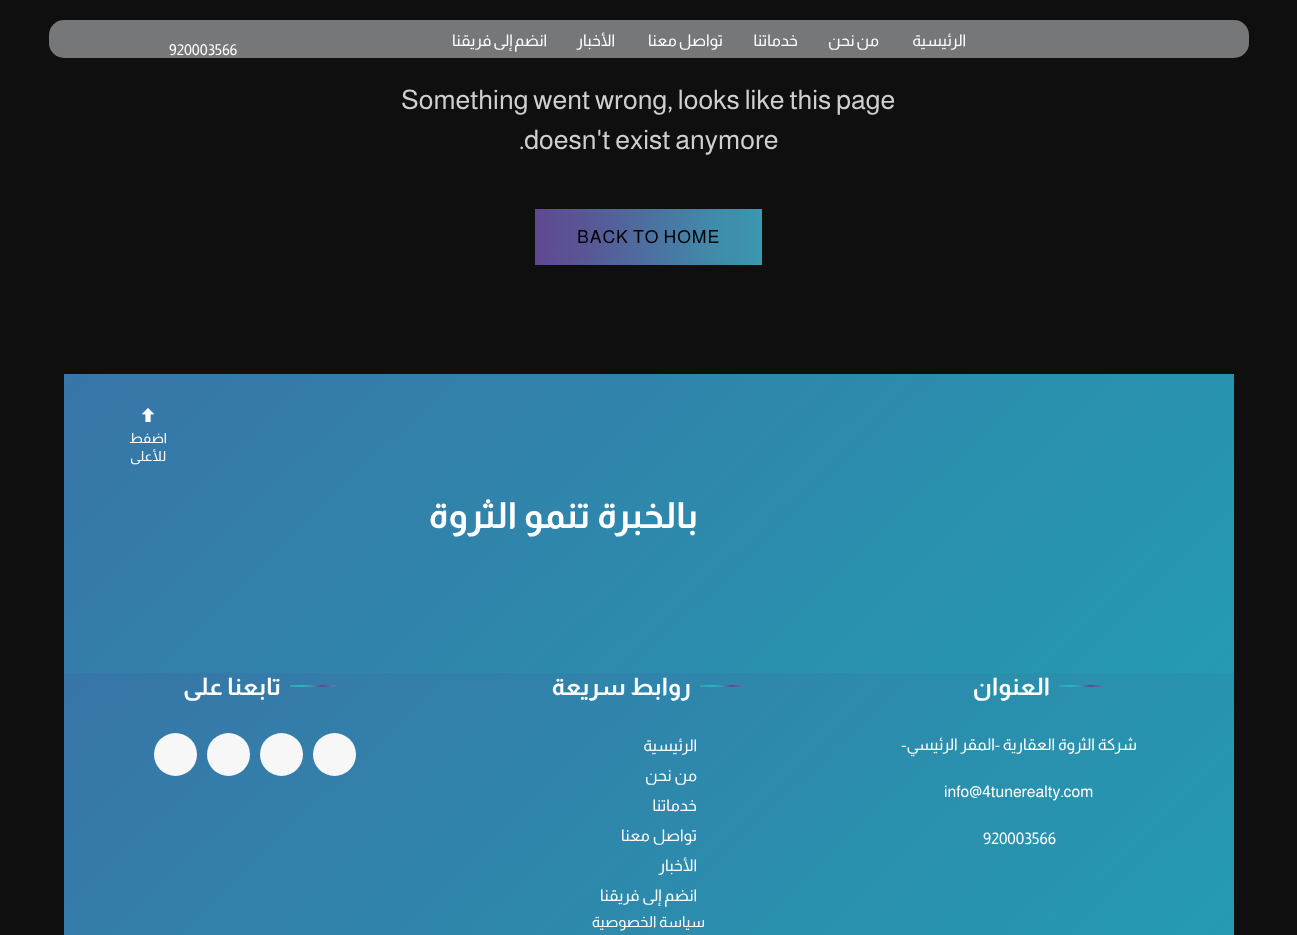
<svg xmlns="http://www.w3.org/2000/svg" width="1297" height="935">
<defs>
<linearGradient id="g1" gradientUnits="userSpaceOnUse" x1="535" y1="237" x2="989" y2="237"><stop offset="0" stop-color="#5f4890"/><stop offset="0.5" stop-color="#3a98af"/><stop offset="1" stop-color="#5f4890"/></linearGradient>
<linearGradient id="g2" gradientUnits="userSpaceOnUse" x1="568" y1="237" x2="889" y2="237"><stop offset="0" stop-color="#5f4890" stop-opacity="0.4"/><stop offset="0.5" stop-color="#3a98af" stop-opacity="0.4"/><stop offset="1" stop-color="#5f4890" stop-opacity="0.4"/></linearGradient>
<linearGradient id="g3" gradientUnits="userSpaceOnUse" x1="1006" y1="893" x2="292" y2="154"><stop offset="0" stop-color="#249bb0"/><stop offset="1" stop-color="#3875a8"/></linearGradient>
<linearGradient id="g4" gradientUnits="userSpaceOnUse" x1="997" y1="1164" x2="301" y2="444"><stop offset="0" stop-color="#249bb0"/><stop offset="1" stop-color="#3875a8"/></linearGradient>
<linearGradient id="g5" gradientUnits="userSpaceOnUse" x1="1070" y1="698" x2="1093" y2="674"><stop offset="0" stop-color="#3a98af"/><stop offset="0.27" stop-color="#29b7bc"/><stop offset="0.48" stop-color="#4292ad"/><stop offset="0.69" stop-color="#5f4890"/><stop offset="1" stop-color="#4292ad"/></linearGradient>
<linearGradient id="g6" gradientUnits="userSpaceOnUse" x1="711" y1="698" x2="734" y2="674"><stop offset="0" stop-color="#3a98af"/><stop offset="0.27" stop-color="#29b7bc"/><stop offset="0.48" stop-color="#4292ad"/><stop offset="0.69" stop-color="#5f4890"/><stop offset="1" stop-color="#4292ad"/></linearGradient>
<linearGradient id="g7" gradientUnits="userSpaceOnUse" x1="301" y1="698" x2="324" y2="674"><stop offset="0" stop-color="#3a98af"/><stop offset="0.27" stop-color="#29b7bc"/><stop offset="0.48" stop-color="#4292ad"/><stop offset="0.69" stop-color="#5f4890"/><stop offset="1" stop-color="#4292ad"/></linearGradient>
</defs>
<rect width="100%" height="100%" fill="#0f0f0f"/>
<rect x="49" y="20" width="1200" height="38" rx="15" fill="#767778"/>
<text x="966" y="46" style="font-family:Almarai;font-size:16px;letter-spacing:0.4px;direction:rtl;fill:#fff">الرئيسية</text>
<text x="879" y="46" word-spacing="-1" style="font-family:Almarai;font-size:16px;letter-spacing:0.4px;direction:rtl;fill:#fff">من نحن</text>
<text x="798" y="46" style="font-family:Almarai;font-size:16px;letter-spacing:0.4px;direction:rtl;fill:#fff">خدماتنا</text>
<text x="723" y="46" word-spacing="-1" style="font-family:Almarai;font-size:16px;letter-spacing:0.4px;direction:rtl;fill:#fff">تواصل معنا</text>
<text x="615" y="46" style="font-family:Almarai;font-size:16px;letter-spacing:0.4px;direction:rtl;fill:#fff">الأخبار</text>
<text x="547" y="46" word-spacing="-1" style="font-family:Almarai;font-size:16px;letter-spacing:0.4px;direction:rtl;fill:#fff">انضم إلى فريقنا</text>
<text x="169" y="55" style="font-family:Almarai;font-size:15px;fill:#fff">920003566</text>
<text x="401" y="109" style="font-family:Almarai;font-size:27px;fill:#cfcfcf">Something went wrong, looks like this page</text>
<text x="519" y="149" style="font-family:Almarai;font-size:27px;fill:#cfcfcf">.doesn't exist anymore</text>
<rect x="535" y="209" width="227" height="56" fill="url(#g1)"/>
<rect x="568" y="213" width="161" height="48" fill="url(#g2)"/>
<text x="577" y="243" style="font-family:Almarai;font-size:18px;letter-spacing:0.9px;fill:#000">BACK TO HOME</text>
<rect x="64" y="374" width="1170" height="299" fill="url(#g3)"/>
<image x="142" y="408" width="12" height="14" href="media/1.png"/>
<text x="167" y="443" style="font-family:Almarai;font-size:14px;direction:rtl;fill:#fff">اضفط</text>
<text x="166" y="461" style="font-family:Almarai;font-size:14px;direction:rtl;fill:#fff">للأعلى</text>
<text x="698" y="528" style="font-family:Almarai;font-size:36px;font-weight:bold;direction:rtl;fill:#fff">بالخبرة تنمو الثروة</text>
<rect x="64" y="673" width="1170" height="262" fill="url(#g4)"/>
<rect x="1059" y="685" width="45" height="2" fill="url(#g5)"/>
<text x="1050" y="695" style="font-family:Almarai;font-size:24px;font-weight:bold;direction:rtl;fill:#fff">العنوان</text>
<text x="1137" y="750" style="font-family:Almarai;font-size:16px;direction:rtl;fill:#fff">شركة الثروة العقارية -المقر الرئيسي-</text>
<text x="944" y="797" style="font-family:Almarai;font-size:16px;fill:#fff">info@4tunerealty.com</text>
<text x="983" y="844" style="font-family:Almarai;font-size:16px;fill:#fff">920003566</text>
<rect x="700" y="685" width="45" height="2" fill="url(#g6)"/>
<text x="691" y="695" style="font-family:Almarai;font-size:24px;font-weight:bold;direction:rtl;fill:#fff">روابط سريعة</text>
<text x="697" y="751" style="font-family:Almarai;font-size:16px;direction:rtl;fill:#fff">الرئيسية</text>
<text x="697" y="781" style="font-family:Almarai;font-size:16px;direction:rtl;fill:#fff">من نحن</text>
<text x="697" y="811" style="font-family:Almarai;font-size:16px;direction:rtl;fill:#fff">خدماتنا</text>
<text x="697" y="841" style="font-family:Almarai;font-size:16px;direction:rtl;fill:#fff">تواصل معنا</text>
<text x="697" y="871" style="font-family:Almarai;font-size:16px;direction:rtl;fill:#fff">الأخبار</text>
<text x="697" y="901" style="font-family:Almarai;font-size:16px;direction:rtl;fill:#fff">انضم إلى فريقنا</text>
<text x="705" y="927" style="font-family:Almarai;font-size:15px;direction:rtl;fill:#fff">سياسة الخصوصية</text>
<rect x="290" y="685" width="45" height="2" fill="url(#g7)"/>
<text x="281" y="695" style="font-family:Almarai;font-size:24px;font-weight:bold;direction:rtl;fill:#fff">تابعنا على</text>
<circle cx="334.5" cy="754.5" r="21.5" fill="#f7f7f7"/>
<circle cx="281.5" cy="754.5" r="21.5" fill="#f7f7f7"/>
<circle cx="228.5" cy="754.5" r="21.5" fill="#f7f7f7"/>
<circle cx="175.5" cy="754.5" r="21.5" fill="#f7f7f7"/>
</svg>
